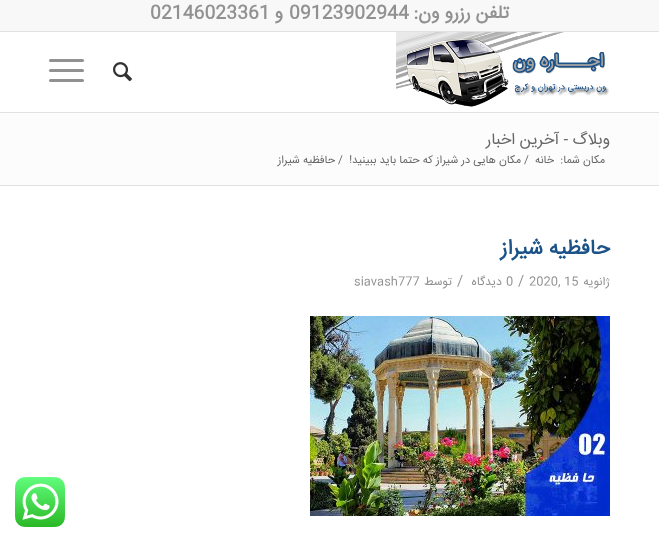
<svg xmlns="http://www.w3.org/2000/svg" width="659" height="542">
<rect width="100%" height="100%" fill="#fff"/>
<rect width="659" height="31" fill="#f8f8f8"/>
<rect y="31" width="659" height="1" fill="#e1e1e1"/>
<text x="509" y="18" style="font-family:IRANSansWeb;font-size:18px;font-weight:bold;direction:rtl;fill:#919191">تلفن رزرو ون:</text>
<text x="289" y="18" style="font-family:IRANSansWeb;font-size:18px;font-weight:bold;fill:#919191">09123902944</text>
<text x="283" y="18" style="font-family:IRANSansWeb;font-size:18px;font-weight:bold;direction:rtl;fill:#919191">و</text>
<text x="150" y="18" style="font-family:IRANSansWeb;font-size:18px;font-weight:bold;fill:#919191">02146023361</text>
<rect y="112" width="659" height="1" fill="#e1e1e1"/>
<image x="396" y="32" width="213" height="75" href="media/1.png"/>
<image x="113" y="62" width="19" height="20" href="media/2.png"/>
<rect x="49" y="69" width="35" height="3" rx="1.5" fill="#919191"/>
<rect x="49" y="59" width="35" height="3" rx="1.5" fill="#919191"/>
<rect x="49" y="79" width="35" height="3" rx="1.5" fill="#919191"/>
<rect y="113" width="659" height="72" fill="#fcfcfc"/>
<text x="610" y="144" style="font-family:IRANSansWeb;font-size:16px;direction:rtl;fill:#666">وبلاگ - آخرین اخبار</text>
<text x="605" y="163" style="font-family:IRANSansWeb;font-size:11px;direction:rtl;fill:#666">مکان شما:</text>
<text x="554" y="163" style="font-family:IRANSansWeb;font-size:11px;direction:rtl;fill:#666">خانه</text>
<text x="524" y="163" style="font-family:IRANSansWeb;font-size:11px;fill:#666">/</text>
<text x="521" y="163" style="font-family:IRANSansWeb;font-size:11px;direction:rtl;fill:#666">مکان هایی در شیراز که حتما باید ببینید!</text>
<text x="338" y="163" style="font-family:IRANSansWeb;font-size:11px;fill:#666">/</text>
<text x="335" y="163" style="font-family:IRANSansWeb;font-size:11px;direction:rtl;fill:#666">حافظیه شیراز</text>
<rect y="185" width="659" height="1" fill="#e1e1e1"/>
<text x="610" y="254" style="font-family:IRANSansWeb;font-size:21px;font-weight:bold;direction:rtl;fill:#1b5287">حافظیه شیراز</text>
<text x="610" y="285" style="font-family:IRANSansWeb;font-size:12px;direction:rtl;fill:#919191">ژانویه</text>
<text x="529" y="285" style="font-family:IRANSansWeb;font-size:12px;fill:#919191">2020, 15</text>
<text x="518" y="285" style="font-family:IRANSansWeb;font-size:14px;fill:#919191">/</text>
<text x="506" y="285" style="font-family:IRANSansWeb;font-size:12px;fill:#919191">0</text>
<text x="502" y="285" style="font-family:IRANSansWeb;font-size:12px;direction:rtl;fill:#919191">دیدگاه</text>
<text x="457" y="285" style="font-family:IRANSansWeb;font-size:14px;fill:#919191">/</text>
<text x="452" y="285" style="font-family:IRANSansWeb;font-size:12px;direction:rtl;fill:#919191">توسط</text>
<text x="354" y="285" style="font-family:IRANSansWeb;font-size:12px;fill:#919191">siavash777</text>
<image x="310" y="316" width="300" height="200" href="media/3.png"/>
<image x="15" y="477" width="50" height="50" href="media/4.png"/>
</svg>
